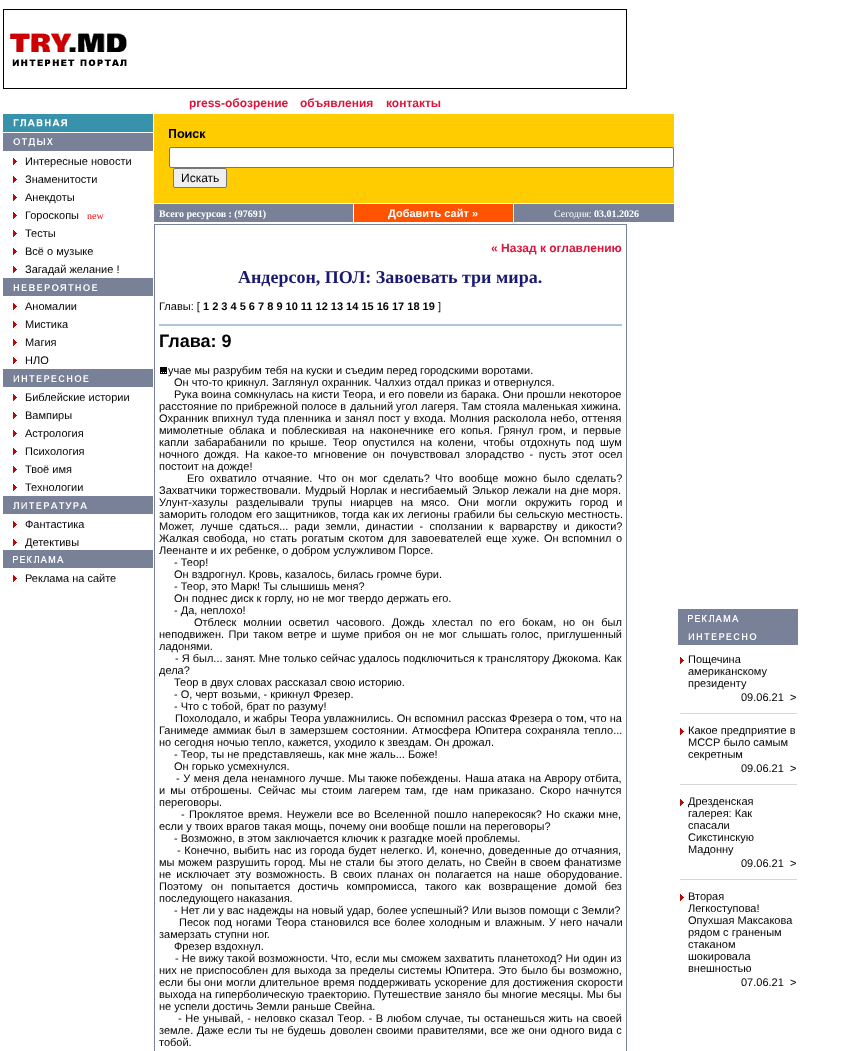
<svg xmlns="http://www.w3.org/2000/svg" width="859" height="1051">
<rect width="100%" height="100%" fill="#fff"/>
<rect x="3" y="9" width="624" height="1" fill="#000"/>
<rect x="3" y="10" width="1" height="78" fill="#000"/>
<image x="10" y="33" width="117" height="33" href="media/1.png"/>
<rect x="626" y="10" width="1" height="78" fill="#000"/>
<rect x="3" y="88" width="624" height="1" fill="#000"/>
<text x="189" y="107" style="font-family:Liberation Sans;font-size:12px;font-weight:bold;fill:#dc143c">press-обозрение</text>
<text x="300" y="107" style="font-family:Liberation Sans;font-size:12px;font-weight:bold;fill:#dc143c">объявления</text>
<text x="386" y="107" style="font-family:Liberation Sans;font-size:12px;font-weight:bold;fill:#dc143c">контакты</text>
<rect x="3" y="114" width="150" height="18" fill="#3992ac"/>
<image x="13" y="119" width="54" height="8" href="media/2.png"/>
<rect x="3" y="133" width="150" height="18" fill="#798199"/>
<image x="13" y="138" width="40" height="9" href="media/3.png"/>
<image x="13" y="158" width="4" height="7" href="media/4.png"/>
<text x="25" y="165" style="font-family:Liberation Sans;font-size:11px;fill:#000">Интересные новости</text>
<image x="13" y="176" width="4" height="7" href="media/4.png"/>
<text x="25" y="183" style="font-family:Liberation Sans;font-size:11px;fill:#000">Знаменитости</text>
<image x="13" y="194" width="4" height="7" href="media/4.png"/>
<text x="25" y="201" style="font-family:Liberation Sans;font-size:11px;fill:#000">Анекдоты</text>
<image x="13" y="212" width="4" height="7" href="media/4.png"/>
<text x="25" y="219" style="font-family:Liberation Sans;font-size:11px;fill:#000">Гороскопы</text>
<text x="87" y="219" style="font-family:Liberation Serif;font-size:10px;fill:#f00">new</text>
<image x="13" y="230" width="4" height="7" href="media/4.png"/>
<text x="25" y="237" style="font-family:Liberation Sans;font-size:11px;fill:#000">Тесты</text>
<image x="13" y="248" width="4" height="7" href="media/4.png"/>
<text x="25" y="255" style="font-family:Liberation Sans;font-size:11px;fill:#000">Всё о музыке</text>
<image x="13" y="266" width="4" height="7" href="media/4.png"/>
<text x="25" y="273" style="font-family:Liberation Sans;font-size:11px;fill:#000">Загадай желание !</text>
<rect x="3" y="278" width="150" height="18" fill="#798199"/>
<image x="13" y="284" width="85" height="7" href="media/5.png"/>
<image x="13" y="303" width="4" height="7" href="media/4.png"/>
<text x="25" y="310" style="font-family:Liberation Sans;font-size:11px;fill:#000">Аномалии</text>
<image x="13" y="321" width="4" height="7" href="media/4.png"/>
<text x="25" y="328" style="font-family:Liberation Sans;font-size:11px;fill:#000">Мистика</text>
<image x="13" y="339" width="4" height="7" href="media/4.png"/>
<text x="25" y="346" style="font-family:Liberation Sans;font-size:11px;fill:#000">Магия</text>
<image x="13" y="357" width="4" height="7" href="media/4.png"/>
<text x="25" y="364" style="font-family:Liberation Sans;font-size:11px;fill:#000">НЛО</text>
<rect x="3" y="369" width="150" height="18" fill="#798199"/>
<image x="13" y="375" width="76" height="7" href="media/6.png"/>
<image x="13" y="394" width="4" height="7" href="media/4.png"/>
<text x="25" y="401" style="font-family:Liberation Sans;font-size:11px;fill:#000">Библейские истории</text>
<image x="13" y="412" width="4" height="7" href="media/4.png"/>
<text x="25" y="419" style="font-family:Liberation Sans;font-size:11px;fill:#000">Вампиры</text>
<image x="13" y="430" width="4" height="7" href="media/4.png"/>
<text x="25" y="437" style="font-family:Liberation Sans;font-size:11px;fill:#000">Астрология</text>
<image x="13" y="448" width="4" height="7" href="media/4.png"/>
<text x="25" y="455" style="font-family:Liberation Sans;font-size:11px;fill:#000">Психология</text>
<image x="13" y="466" width="4" height="7" href="media/4.png"/>
<text x="25" y="473" style="font-family:Liberation Sans;font-size:11px;fill:#000">Твоё имя</text>
<image x="13" y="484" width="4" height="7" href="media/4.png"/>
<text x="25" y="491" style="font-family:Liberation Sans;font-size:11px;fill:#000">Технологии</text>
<rect x="3" y="496" width="150" height="18" fill="#798199"/>
<image x="13" y="502" width="74" height="7" href="media/7.png"/>
<image x="13" y="521" width="4" height="7" href="media/4.png"/>
<text x="25" y="528" style="font-family:Liberation Sans;font-size:11px;fill:#000">Фантастика</text>
<image x="13" y="539" width="4" height="7" href="media/4.png"/>
<text x="25" y="546" style="font-family:Liberation Sans;font-size:11px;fill:#000">Детективы</text>
<rect x="3" y="550" width="150" height="18" fill="#798199"/>
<image x="13" y="556" width="51" height="7" href="media/8.png"/>
<image x="13" y="575" width="4" height="7" href="media/4.png"/>
<text x="25" y="582" style="font-family:Liberation Sans;font-size:11px;fill:#000">Реклама на сайте</text>
<rect x="154" y="114" width="520" height="89" fill="#fc0"/>
<image x="169" y="129" width="37" height="9" href="media/9.png"/>
<rect x="169.5" y="147.5" width="504" height="20" rx="1.5" fill="#fff" stroke="#767676"/>
<rect x="173.5" y="168.5" width="53" height="19" rx="1.5" fill="#efefef" stroke="#767676"/>
<text x="181" y="182" style="font-family:Liberation Sans;font-size:12px;fill:#000">Искать</text>
<rect x="154" y="204" width="199" height="18" fill="#798199"/>
<text x="159" y="217" style="font-family:Liberation Serif;font-size:10px;font-weight:bold;fill:#fff">Всего ресурсов : (97691)</text>
<rect x="354" y="204" width="159" height="18" fill="#ff5300"/>
<text x="388" y="217" style="font-family:Liberation Sans;font-size:11px;font-weight:bold;fill:#fff">Добавить сайт »</text>
<rect x="514" y="204" width="160" height="18" fill="#798199"/>
<text x="554" y="217" style="font-family:Liberation Serif;font-size:10px;fill:#fff">Сегодня:</text>
<text x="594" y="217" style="font-family:Liberation Serif;font-size:10px;font-weight:bold;fill:#fff">03.01.2026</text>
<rect x="154" y="223" width="1" height="1" fill="#f5f5f5"/>
<rect x="154" y="224" width="473" height="1" fill="#798199"/>
<rect x="154" y="225" width="1" height="826" fill="#798199"/>
<text x="491" y="252" style="font-family:Liberation Sans;font-size:12px;font-weight:bold;fill:#dc143c">« Назад к оглавлению</text>
<text x="238" y="283" style="font-family:Liberation Serif;font-size:18px;font-weight:bold;fill:#191970">Андерсон, ПОЛ: Завоевать три мира.</text>
<text x="159" y="310" style="font-family:Liberation Sans;font-size:11px;fill:#000">Главы: [</text>
<text x="203" y="310" style="font-family:Liberation Sans;font-size:11px;font-weight:bold;fill:#000">1 2 3 4 5 6 7 8 9 10 11 12 13 14 15 16 17 18 19</text>
<text x="438" y="310" style="font-family:Liberation Sans;font-size:11px;fill:#000">]</text>
<rect x="159" y="324" width="463" height="2" fill="#b0c4de"/>
<text x="159" y="347" style="font-family:Liberation Sans;font-size:18px;font-weight:bold;fill:#000">Глава: 9</text>
<image x="160" y="367" width="7" height="7" href="media/10.png"/>
<text x="168" y="374" style="font-family:Liberation Sans;font-size:11px;fill:#000">учае мы разрубим тебя на куски и съедим перед городскими воротами.</text>
<text x="174" y="386" style="font-family:Liberation Sans;font-size:11px;fill:#000">Он что-то крикнул. Заглянул охранник. Чалхиз отдал приказ и отвернулся.</text>
<text x="174" y="398" style="font-family:Liberation Sans;font-size:11px;fill:#000">Рука воина сомкнулась на кисти Теора, и его повели из барака. Они прошли некоторое</text>
<text x="159" y="410" style="font-family:Liberation Sans;font-size:11px;fill:#000">расстояние по прибрежной полосе в</text>
<text x="350" y="410" style="font-family:Liberation Sans;font-size:11px;fill:#000">дальний угол</text>
<text x="421" y="410" style="font-family:Liberation Sans;font-size:11px;fill:#000">лагеря. Там стояла маленькая хижина.</text>
<text x="159" y="422" word-spacing="0.6" style="font-family:Liberation Sans;font-size:11px;fill:#000">Охранник впихнул туда пленника и занял пост у входа. Молния расколола небо, оттеняя</text>
<text x="159" y="434" word-spacing="2.5" style="font-family:Liberation Sans;font-size:11px;fill:#000">мимолетные облака и</text>
<text x="282" y="434" style="font-family:Liberation Sans;font-size:11px;fill:#000">поблескивая</text>
<text x="352" y="434" word-spacing="2.5" style="font-family:Liberation Sans;font-size:11px;fill:#000">на наконечнике его копья. Грянул гром, и первые</text>
<text x="159" y="446" word-spacing="2.5" style="font-family:Liberation Sans;font-size:11px;fill:#000">капли забарабанили по</text>
<text x="290" y="446" word-spacing="2.5" style="font-family:Liberation Sans;font-size:11px;fill:#000">крыше. Теор опустился на колени,</text>
<text x="483" y="446" style="font-family:Liberation Sans;font-size:11px;fill:#000">чтобы</text>
<text x="520" y="446" style="font-family:Liberation Sans;font-size:11px;fill:#000">отдохнуть</text>
<text x="576" y="446" style="font-family:Liberation Sans;font-size:11px;fill:#000">под</text>
<text x="600" y="446" style="font-family:Liberation Sans;font-size:11px;fill:#000">шум</text>
<text x="159" y="458" style="font-family:Liberation Sans;font-size:11px;fill:#000">ночного</text>
<text x="204" y="458" style="font-family:Liberation Sans;font-size:11px;fill:#000">дождя.</text>
<text x="245" y="458" word-spacing="2.5" style="font-family:Liberation Sans;font-size:11px;fill:#000">На какое-то мгновение он почувствовал злорадство - пусть этот осел</text>
<text x="159" y="470" style="font-family:Liberation Sans;font-size:11px;fill:#000">постоит на дожде!</text>
<text x="187" y="482" word-spacing="2.5" style="font-family:Liberation Sans;font-size:11px;fill:#000">Его охватило отчаяние. Что он мог</text>
<text x="383" y="482" style="font-family:Liberation Sans;font-size:11px;fill:#000">сделать?</text>
<text x="435" y="482" style="font-family:Liberation Sans;font-size:11px;fill:#000">Что</text>
<text x="459" y="482" style="font-family:Liberation Sans;font-size:11px;fill:#000">вообще</text>
<text x="504" y="482" style="font-family:Liberation Sans;font-size:11px;fill:#000">можно</text>
<text x="543" y="482" word-spacing="2.5" style="font-family:Liberation Sans;font-size:11px;fill:#000">было сделать?</text>
<text x="159" y="494" word-spacing="0.5" style="font-family:Liberation Sans;font-size:11px;fill:#000">Захватчики торжествовали.</text>
<text x="305" y="494" style="font-family:Liberation Sans;font-size:11px;fill:#000">Мудрый</text>
<text x="350" y="494" style="font-family:Liberation Sans;font-size:11px;fill:#000">Норлак</text>
<text x="391" y="494" style="font-family:Liberation Sans;font-size:11px;fill:#000">и</text>
<text x="400" y="494" style="font-family:Liberation Sans;font-size:11px;fill:#000">несгибаемый</text>
<text x="472" y="494" word-spacing="0.5" style="font-family:Liberation Sans;font-size:11px;fill:#000">Элькор лежали на дне моря.</text>
<text x="159" y="506" word-spacing="5" style="font-family:Liberation Sans;font-size:11px;fill:#000">Улунт-хазулы разделывали трупы ниарцев</text>
<text x="401" y="506" style="font-family:Liberation Sans;font-size:11px;fill:#000">на</text>
<text x="421" y="506" style="font-family:Liberation Sans;font-size:11px;fill:#000">мясо.</text>
<text x="458" y="506" word-spacing="5" style="font-family:Liberation Sans;font-size:11px;fill:#000">Они могли окружить город и</text>
<text x="159" y="518" style="font-family:Liberation Sans;font-size:11px;fill:#000">заморить</text>
<text x="210" y="518" style="font-family:Liberation Sans;font-size:11px;fill:#000">голодом</text>
<text x="256" y="518" style="font-family:Liberation Sans;font-size:11px;fill:#000">его</text>
<text x="275" y="518" style="font-family:Liberation Sans;font-size:11px;fill:#000">защитников,</text>
<text x="342" y="518" style="font-family:Liberation Sans;font-size:11px;fill:#000">тогда</text>
<text x="373" y="518" style="font-family:Liberation Sans;font-size:11px;fill:#000">как</text>
<text x="392" y="518" word-spacing="0.5" style="font-family:Liberation Sans;font-size:11px;fill:#000">их легионы грабили бы сельскую местность.</text>
<text x="159" y="530" word-spacing="3.1" style="font-family:Liberation Sans;font-size:11px;fill:#000">Может, лучше сдаться... ради земли, династии - сползании к варварству и</text>
<text x="576" y="530" style="font-family:Liberation Sans;font-size:11px;fill:#000">дикости?</text>
<text x="159" y="542" style="font-family:Liberation Sans;font-size:11px;fill:#000">Жалкая</text>
<text x="203" y="542" style="font-family:Liberation Sans;font-size:11px;fill:#000">свобода,</text>
<text x="253" y="542" style="font-family:Liberation Sans;font-size:11px;fill:#000">но</text>
<text x="270" y="542" word-spacing="1.5" style="font-family:Liberation Sans;font-size:11px;fill:#000">стать рогатым скотом для завоевателей еще хуже. Он</text>
<text x="562" y="542" style="font-family:Liberation Sans;font-size:11px;fill:#000">вспомнил</text>
<text x="616" y="542" style="font-family:Liberation Sans;font-size:11px;fill:#000">о</text>
<text x="159" y="554" style="font-family:Liberation Sans;font-size:11px;fill:#000">Леенанте и их ребенке, о добром услужливом Порсе.</text>
<text x="174" y="566" style="font-family:Liberation Sans;font-size:11px;fill:#000">- Теор!</text>
<text x="174" y="578" style="font-family:Liberation Sans;font-size:11px;fill:#000">Он вздрогнул. Кровь, казалось, билась громче бури.</text>
<text x="174" y="590" style="font-family:Liberation Sans;font-size:11px;fill:#000">- Теор, это Марк! Ты слышишь меня?</text>
<text x="174" y="602" style="font-family:Liberation Sans;font-size:11px;fill:#000">Он поднес диск к горлу, но не мог твердо держать его.</text>
<text x="174" y="614" style="font-family:Liberation Sans;font-size:11px;fill:#000">- Да, неплохо!</text>
<text x="194" y="626" word-spacing="4" style="font-family:Liberation Sans;font-size:11px;fill:#000">Отблеск молнии осветил часового. Дождь хлестал по его</text>
<text x="522" y="626" style="font-family:Liberation Sans;font-size:11px;fill:#000">бокам,</text>
<text x="563" y="626" style="font-family:Liberation Sans;font-size:11px;fill:#000">но</text>
<text x="582" y="626" word-spacing="4" style="font-family:Liberation Sans;font-size:11px;fill:#000">он был</text>
<text x="159" y="638" word-spacing="1.5" style="font-family:Liberation Sans;font-size:11px;fill:#000">неподвижен. При таком ветре и шуме прибоя он</text>
<text x="422" y="638" style="font-family:Liberation Sans;font-size:11px;fill:#000">не</text>
<text x="439" y="638" style="font-family:Liberation Sans;font-size:11px;fill:#000">мог</text>
<text x="462" y="638" style="font-family:Liberation Sans;font-size:11px;fill:#000">слышать</text>
<text x="511" y="638" word-spacing="2" style="font-family:Liberation Sans;font-size:11px;fill:#000">голос, приглушенный</text>
<text x="159" y="650" style="font-family:Liberation Sans;font-size:11px;fill:#000">ладонями.</text>
<text x="175" y="662" style="font-family:Liberation Sans;font-size:11px;fill:#000">- Я был... занят. Мне только сейчас удалось подключиться к транслятору Джокома. Как</text>
<text x="159" y="674" style="font-family:Liberation Sans;font-size:11px;fill:#000">дела?</text>
<text x="174" y="686" style="font-family:Liberation Sans;font-size:11px;fill:#000">Теор в двух словах рассказал свою историю.</text>
<text x="174" y="698" style="font-family:Liberation Sans;font-size:11px;fill:#000">- О, черт возьми, - крикнул Фрезер.</text>
<text x="174" y="710" style="font-family:Liberation Sans;font-size:11px;fill:#000">- Что с тобой, брат по разуму!</text>
<text x="175" y="722" style="font-family:Liberation Sans;font-size:11px;fill:#000">Похолодало, и жабры Теора увлажнились. Он вспомнил рассказ Фрезера о том, что на</text>
<text x="159" y="734" word-spacing="1" style="font-family:Liberation Sans;font-size:11px;fill:#000">Ганимеде аммиак был в замерзшем состоянии.</text>
<text x="412" y="734" style="font-family:Liberation Sans;font-size:11px;fill:#000">Атмосфера</text>
<text x="475" y="734" word-spacing="1" style="font-family:Liberation Sans;font-size:11px;fill:#000">Юпитера сохраняла тепло...</text>
<text x="159" y="746" style="font-family:Liberation Sans;font-size:11px;fill:#000">но сегодня ночью тепло, кажется, уходило к звездам. Он дрожал.</text>
<text x="174" y="758" style="font-family:Liberation Sans;font-size:11px;fill:#000">- Теор, ты не представляешь, как мне жаль... Боже!</text>
<text x="174" y="770" style="font-family:Liberation Sans;font-size:11px;fill:#000">Он горько усмехнулся.</text>
<text x="176" y="782" word-spacing="0.5" style="font-family:Liberation Sans;font-size:11px;fill:#000">- У меня дела ненамного лучше. Мы</text>
<text x="368" y="782" style="font-family:Liberation Sans;font-size:11px;fill:#000">также</text>
<text x="400" y="782" style="font-family:Liberation Sans;font-size:11px;fill:#000">побеждены.</text>
<text x="465" y="782" style="font-family:Liberation Sans;font-size:11px;fill:#000">Наша</text>
<text x="497" y="782" style="font-family:Liberation Sans;font-size:11px;fill:#000">атака</text>
<text x="529" y="782" style="font-family:Liberation Sans;font-size:11px;fill:#000">на Аврору отбита,</text>
<text x="159" y="794" word-spacing="2" style="font-family:Liberation Sans;font-size:11px;fill:#000">и мы отброшены.</text>
<text x="258" y="794" style="font-family:Liberation Sans;font-size:11px;fill:#000">Сейчас</text>
<text x="301" y="794" style="font-family:Liberation Sans;font-size:11px;fill:#000">мы</text>
<text x="322" y="794" style="font-family:Liberation Sans;font-size:11px;fill:#000">стоим</text>
<text x="358" y="794" style="font-family:Liberation Sans;font-size:11px;fill:#000">лагерем</text>
<text x="405" y="794" style="font-family:Liberation Sans;font-size:11px;fill:#000">там,</text>
<text x="432" y="794" style="font-family:Liberation Sans;font-size:11px;fill:#000">где</text>
<text x="454" y="794" word-spacing="2" style="font-family:Liberation Sans;font-size:11px;fill:#000">нам приказано. Скоро начнутся</text>
<text x="159" y="806" style="font-family:Liberation Sans;font-size:11px;fill:#000">переговоры.</text>
<text x="181" y="818" word-spacing="1.25" style="font-family:Liberation Sans;font-size:11px;fill:#000">- Проклятое время. Неужели все во</text>
<text x="374" y="818" style="font-family:Liberation Sans;font-size:11px;fill:#000">Вселенной</text>
<text x="434" y="818" style="font-family:Liberation Sans;font-size:11px;fill:#000">пошло</text>
<text x="472" y="818" style="font-family:Liberation Sans;font-size:11px;fill:#000">наперекосяк?</text>
<text x="546" y="818" word-spacing="1" style="font-family:Liberation Sans;font-size:11px;fill:#000">Но скажи мне,</text>
<text x="159" y="830" style="font-family:Liberation Sans;font-size:11px;fill:#000">если у твоих врагов такая мощь, почему они вообще пошли на переговоры?</text>
<text x="174" y="842" style="font-family:Liberation Sans;font-size:11px;fill:#000">- Возможно, в этом заключается ключик к разгадке моей проблемы.</text>
<text x="177" y="854" word-spacing="0.6" style="font-family:Liberation Sans;font-size:11px;fill:#000">- Конечно, выбить нас из города будет нелегко. И, конечно, доведенные до отчаяния,</text>
<text x="159" y="866" word-spacing="0.5" style="font-family:Liberation Sans;font-size:11px;fill:#000">мы можем разрушить город. Мы не стали</text>
<text x="379" y="866" style="font-family:Liberation Sans;font-size:11px;fill:#000">бы</text>
<text x="397" y="866" style="font-family:Liberation Sans;font-size:11px;fill:#000">этого</text>
<text x="427" y="866" style="font-family:Liberation Sans;font-size:11px;fill:#000">делать,</text>
<text x="469" y="866" word-spacing="0.5" style="font-family:Liberation Sans;font-size:11px;fill:#000">но Свейн в своем фанатизме</text>
<text x="159" y="878" word-spacing="2" style="font-family:Liberation Sans;font-size:11px;fill:#000">не исключает эту возможность. В</text>
<text x="343" y="878" style="font-family:Liberation Sans;font-size:11px;fill:#000">своих</text>
<text x="377" y="878" style="font-family:Liberation Sans;font-size:11px;fill:#000">планах</text>
<text x="418" y="878" word-spacing="2" style="font-family:Liberation Sans;font-size:11px;fill:#000">он полагается</text>
<text x="497" y="878" style="font-family:Liberation Sans;font-size:11px;fill:#000">на</text>
<text x="514" y="878" style="font-family:Liberation Sans;font-size:11px;fill:#000">наше</text>
<text x="547" y="878" style="font-family:Liberation Sans;font-size:11px;fill:#000">оборудование.</text>
<text x="159" y="890" style="font-family:Liberation Sans;font-size:11px;fill:#000">Поэтому</text>
<text x="211" y="890" style="font-family:Liberation Sans;font-size:11px;fill:#000">он</text>
<text x="231" y="890" style="font-family:Liberation Sans;font-size:11px;fill:#000">попытается</text>
<text x="298" y="890" word-spacing="4.75" style="font-family:Liberation Sans;font-size:11px;fill:#000">достичь компромисса, такого как возвращение домой без</text>
<text x="159" y="902" style="font-family:Liberation Sans;font-size:11px;fill:#000">последующего наказания.</text>
<text x="174" y="914" style="font-family:Liberation Sans;font-size:11px;fill:#000">- Нет ли у вас надежды на новый удар, более успешный? Или вызов помощи с Земли?</text>
<text x="179" y="926" word-spacing="1" style="font-family:Liberation Sans;font-size:11px;fill:#000">Песок под ногами Теора становился все более</text>
<text x="429" y="926" style="font-family:Liberation Sans;font-size:11px;fill:#000">холодным</text>
<text x="484" y="926" style="font-family:Liberation Sans;font-size:11px;fill:#000">и</text>
<text x="495" y="926" style="font-family:Liberation Sans;font-size:11px;fill:#000">влажным.</text>
<text x="549" y="926" word-spacing="1" style="font-family:Liberation Sans;font-size:11px;fill:#000">У него начали</text>
<text x="159" y="938" style="font-family:Liberation Sans;font-size:11px;fill:#000">замерзать ступни ног.</text>
<text x="174" y="950" style="font-family:Liberation Sans;font-size:11px;fill:#000">Фрезер вздохнул.</text>
<text x="175" y="962" style="font-family:Liberation Sans;font-size:11px;fill:#000">- Не вижу такой возможности. Что, если мы сможем захватить планетоход? Ни один из</text>
<text x="159" y="974" word-spacing="0.5" style="font-family:Liberation Sans;font-size:11px;fill:#000">них не приспособлен для выхода за</text>
<text x="350" y="974" style="font-family:Liberation Sans;font-size:11px;fill:#000">пределы</text>
<text x="398" y="974" word-spacing="0.5" style="font-family:Liberation Sans;font-size:11px;fill:#000">системы Юпитера. Это</text>
<text x="521" y="974" style="font-family:Liberation Sans;font-size:11px;fill:#000">было</text>
<text x="551" y="974" style="font-family:Liberation Sans;font-size:11px;fill:#000">бы</text>
<text x="569" y="974" style="font-family:Liberation Sans;font-size:11px;fill:#000">возможно,</text>
<text x="159" y="986" style="font-family:Liberation Sans;font-size:11px;fill:#000">если</text>
<text x="187" y="986" style="font-family:Liberation Sans;font-size:11px;fill:#000">бы</text>
<text x="204" y="986" style="font-family:Liberation Sans;font-size:11px;fill:#000">они</text>
<text x="226" y="986" style="font-family:Liberation Sans;font-size:11px;fill:#000">могли</text>
<text x="259" y="986" style="font-family:Liberation Sans;font-size:11px;fill:#000">длительное</text>
<text x="323" y="986" word-spacing="0.5" style="font-family:Liberation Sans;font-size:11px;fill:#000">время поддерживать ускорение для достижения скорости</text>
<text x="159" y="998" style="font-family:Liberation Sans;font-size:11px;fill:#000">выхода на</text>
<text x="215" y="998" word-spacing="0.25" style="font-family:Liberation Sans;font-size:11px;fill:#000">гиперболическую траекторию. Путешествие заняло бы многие месяцы. Мы бы</text>
<text x="159" y="1010" style="font-family:Liberation Sans;font-size:11px;fill:#000">не успели достичь Земли раньше Свейна.</text>
<text x="178" y="1022" word-spacing="0.6" style="font-family:Liberation Sans;font-size:11px;fill:#000">- Не унывай, - неловко сказал Теор. - В любом случае,</text>
<text x="467" y="1022" style="font-family:Liberation Sans;font-size:11px;fill:#000">ты</text>
<text x="484" y="1022" word-spacing="0.6" style="font-family:Liberation Sans;font-size:11px;fill:#000">останешься жить на своей</text>
<text x="159" y="1034" word-spacing="0.5" style="font-family:Liberation Sans;font-size:11px;fill:#000">земле. Даже если ты не будешь</text>
<text x="330" y="1034" style="font-family:Liberation Sans;font-size:11px;fill:#000">доволен</text>
<text x="376" y="1034" style="font-family:Liberation Sans;font-size:11px;fill:#000">своими</text>
<text x="417" y="1034" word-spacing="0.5" style="font-family:Liberation Sans;font-size:11px;fill:#000">правителями, все же они одного вида с</text>
<text x="159" y="1046" style="font-family:Liberation Sans;font-size:11px;fill:#000">тобой.</text>
<rect x="626" y="225" width="1" height="826" fill="#798199"/>
<rect x="678" y="609" width="120" height="36" fill="#798199"/>
<image x="688" y="615" width="51" height="7" href="media/8.png"/>
<image x="688" y="633" width="69" height="7" href="media/11.png"/>
<image x="680" y="657" width="4" height="7" href="media/4.png"/>
<text x="688" y="663" style="font-family:Liberation Sans;font-size:11px;fill:#000">Пощечина</text>
<text x="688" y="675" style="font-family:Liberation Sans;font-size:11px;fill:#000">американскому</text>
<text x="688" y="687" style="font-family:Liberation Sans;font-size:11px;fill:#000">президенту</text>
<text x="741" y="701" style="font-family:Liberation Sans;font-size:11px;fill:#000" xml:space="preserve">09.06.21  &gt;</text>
<rect x="680" y="713" width="117" height="1" fill="#d3d3d3"/>
<path d="M680 713.5h117" fill="none" stroke="#dcdcdc" stroke-dasharray="1 1"/>
<image x="680" y="728" width="4" height="7" href="media/4.png"/>
<text x="688" y="734" style="font-family:Liberation Sans;font-size:11px;fill:#000">Какое предприятие в</text>
<text x="688" y="746" style="font-family:Liberation Sans;font-size:11px;fill:#000">МССР было самым</text>
<text x="688" y="758" style="font-family:Liberation Sans;font-size:11px;fill:#000">секретным</text>
<text x="741" y="772" style="font-family:Liberation Sans;font-size:11px;fill:#000" xml:space="preserve">09.06.21  &gt;</text>
<rect x="680" y="784" width="117" height="1" fill="#d3d3d3"/>
<path d="M680 784.5h117" fill="none" stroke="#dcdcdc" stroke-dasharray="1 1"/>
<image x="680" y="799" width="4" height="7" href="media/4.png"/>
<text x="688" y="805" style="font-family:Liberation Sans;font-size:11px;fill:#000">Дрезденская</text>
<text x="688" y="817" style="font-family:Liberation Sans;font-size:11px;fill:#000">галерея: Как</text>
<text x="688" y="829" style="font-family:Liberation Sans;font-size:11px;fill:#000">спасали</text>
<text x="688" y="841" style="font-family:Liberation Sans;font-size:11px;fill:#000">Сикстинскую</text>
<text x="688" y="853" style="font-family:Liberation Sans;font-size:11px;fill:#000">Мадонну</text>
<text x="741" y="867" style="font-family:Liberation Sans;font-size:11px;fill:#000" xml:space="preserve">09.06.21  &gt;</text>
<rect x="680" y="879" width="117" height="1" fill="#d3d3d3"/>
<path d="M680 879.5h117" fill="none" stroke="#dcdcdc" stroke-dasharray="1 1"/>
<image x="680" y="894" width="4" height="7" href="media/4.png"/>
<text x="688" y="900" style="font-family:Liberation Sans;font-size:11px;fill:#000">Вторая</text>
<text x="688" y="912" style="font-family:Liberation Sans;font-size:11px;fill:#000">Легкоступова!</text>
<text x="688" y="924" style="font-family:Liberation Sans;font-size:11px;fill:#000">Опухшая Максакова</text>
<text x="688" y="936" style="font-family:Liberation Sans;font-size:11px;fill:#000">рядом с граненым</text>
<text x="688" y="948" style="font-family:Liberation Sans;font-size:11px;fill:#000">стаканом</text>
<text x="688" y="960" style="font-family:Liberation Sans;font-size:11px;fill:#000">шокировала</text>
<text x="688" y="972" style="font-family:Liberation Sans;font-size:11px;fill:#000">внешностью</text>
<text x="741" y="986" style="font-family:Liberation Sans;font-size:11px;fill:#000" xml:space="preserve">07.06.21  &gt;</text>
</svg>
